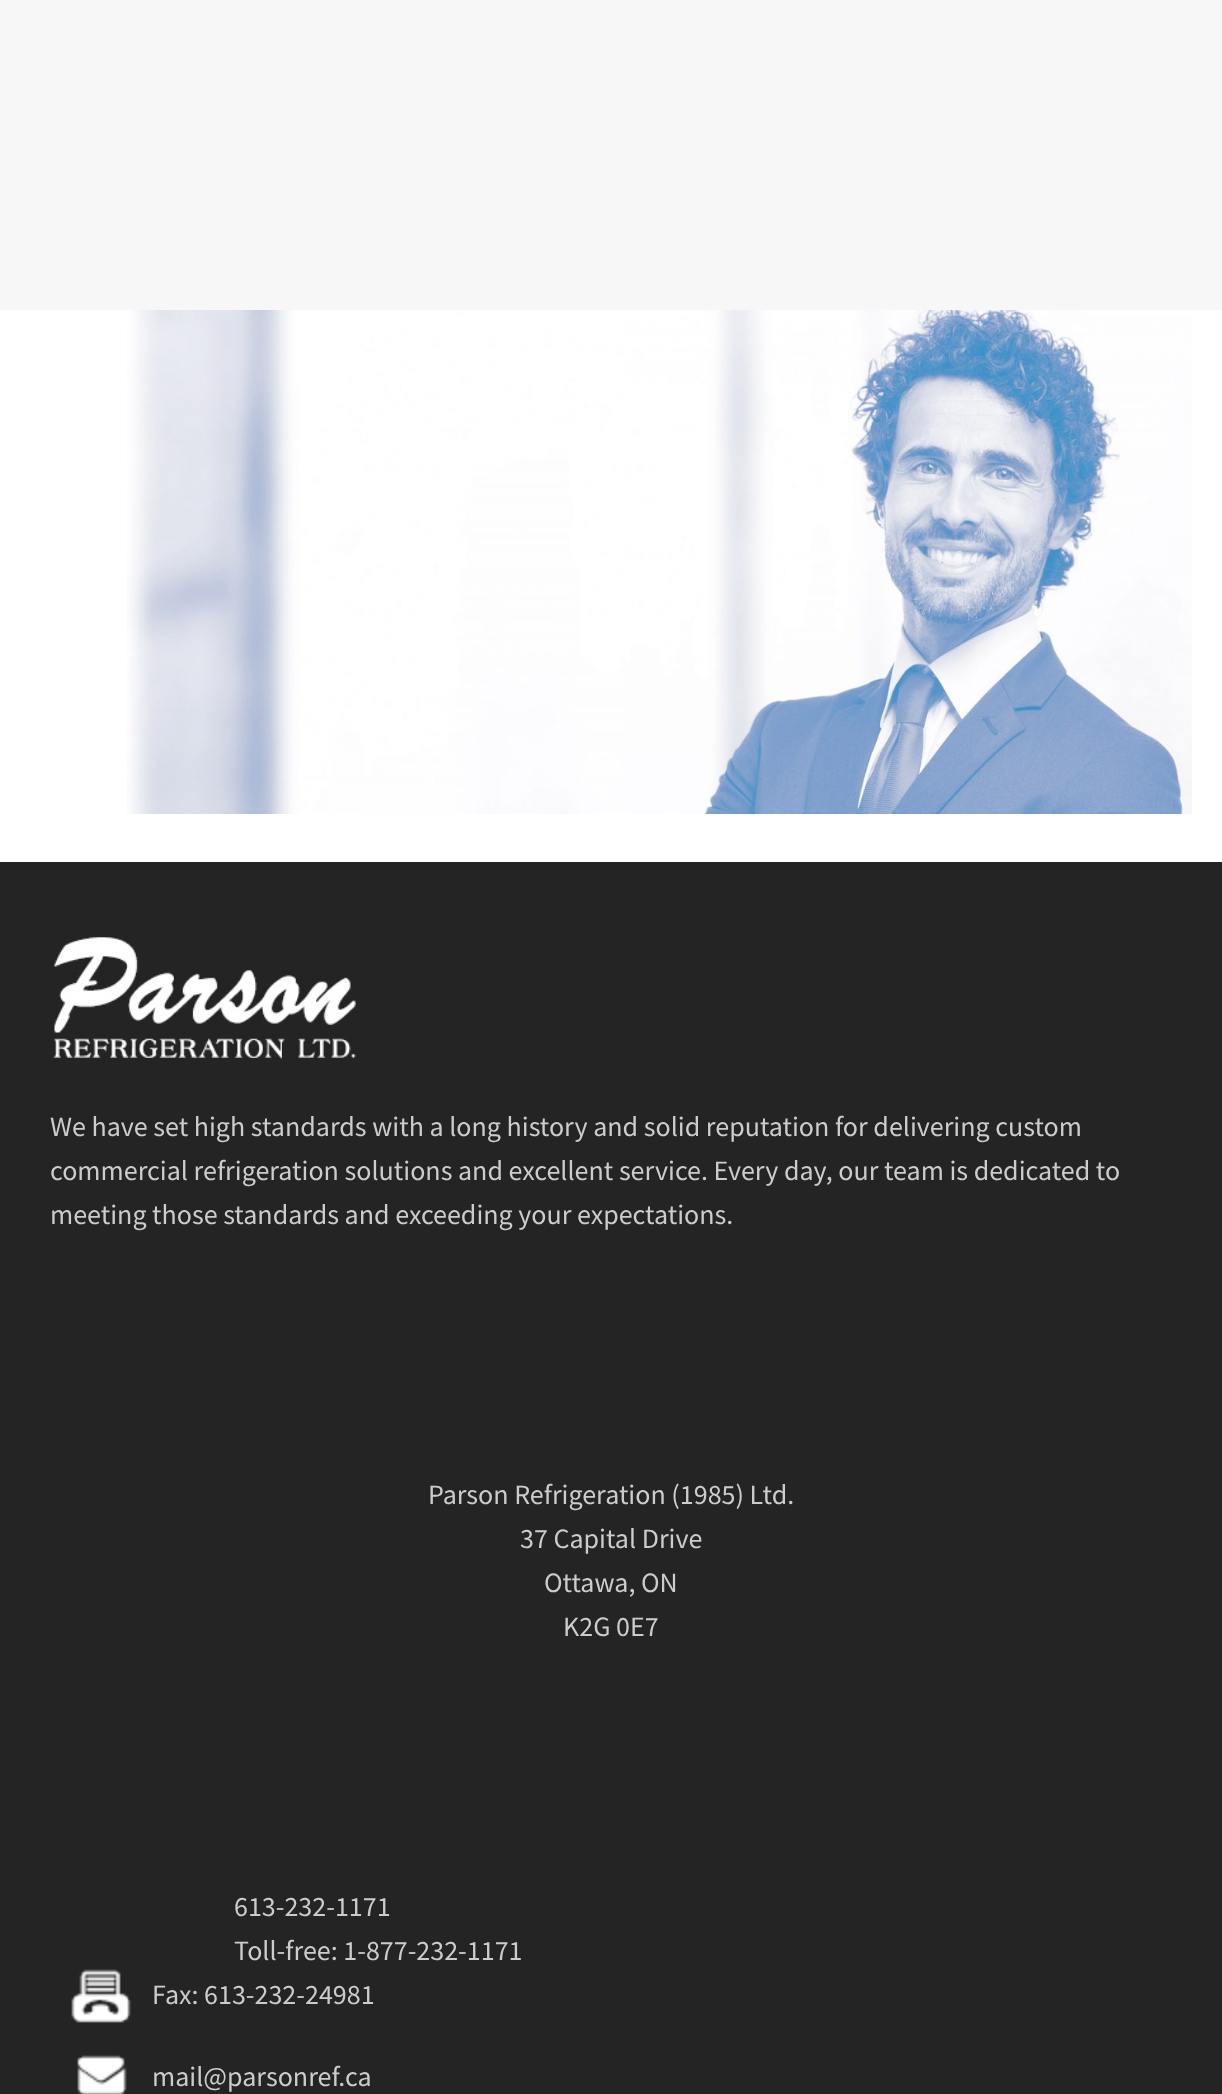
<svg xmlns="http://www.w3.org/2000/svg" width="1222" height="2094">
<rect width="100%" height="100%" fill="#fff"/>
<rect width="1222" height="310" fill="#f7f7f7"/>
<image x="127" y="310" width="1065" height="504" href="media/1.png"/>
<rect y="862" width="1222" height="1232" fill="#242424"/>
<image x="53" y="937" width="303" height="123" href="media/2.png"/>
<text x="50" y="1136" style="font-family:Source Sans Pro;font-size:28px;fill:#ccc">We have set high standards with a long history and solid reputation for delivering custom</text>
<text x="50" y="1180" style="font-family:Source Sans Pro;font-size:28px;fill:#ccc">commercial refrigeration solutions and excellent service. Every day, our team is dedicated to</text>
<text x="50" y="1224" style="font-family:Source Sans Pro;font-size:28px;fill:#ccc">meeting those standards and exceeding your expectations.</text>
<text x="428" y="1504" style="font-family:Source Sans Pro;font-size:28px;fill:#ccc">Parson Refrigeration (1985) Ltd.</text>
<text x="520" y="1548" style="font-family:Source Sans Pro;font-size:28px;fill:#ccc">37 Capital Drive</text>
<text x="544" y="1592" style="font-family:Source Sans Pro;font-size:28px;fill:#ccc">Ottawa, ON</text>
<text x="563" y="1636" style="font-family:Source Sans Pro;font-size:28px;fill:#ccc">K2G 0E7</text>
<text x="234" y="1916" style="font-family:Source Sans Pro;font-size:28px;fill:#ccc">613-232-1171</text>
<text x="234" y="1960" style="font-family:Source Sans Pro;font-size:28px;fill:#ccc">Toll-free: 1-877-232-1171</text>
<image x="71" y="1969" width="60" height="54" href="media/3.png"/>
<text x="152" y="2004" style="font-family:Source Sans Pro;font-size:28px;fill:#ccc">Fax: 613-232-24981</text>
<image x="77" y="2055" width="50" height="39" href="media/4.png"/>
<text x="152" y="2086" style="font-family:Source Sans Pro;font-size:28px;fill:#ccc">mail@parsonref.ca</text>
</svg>
